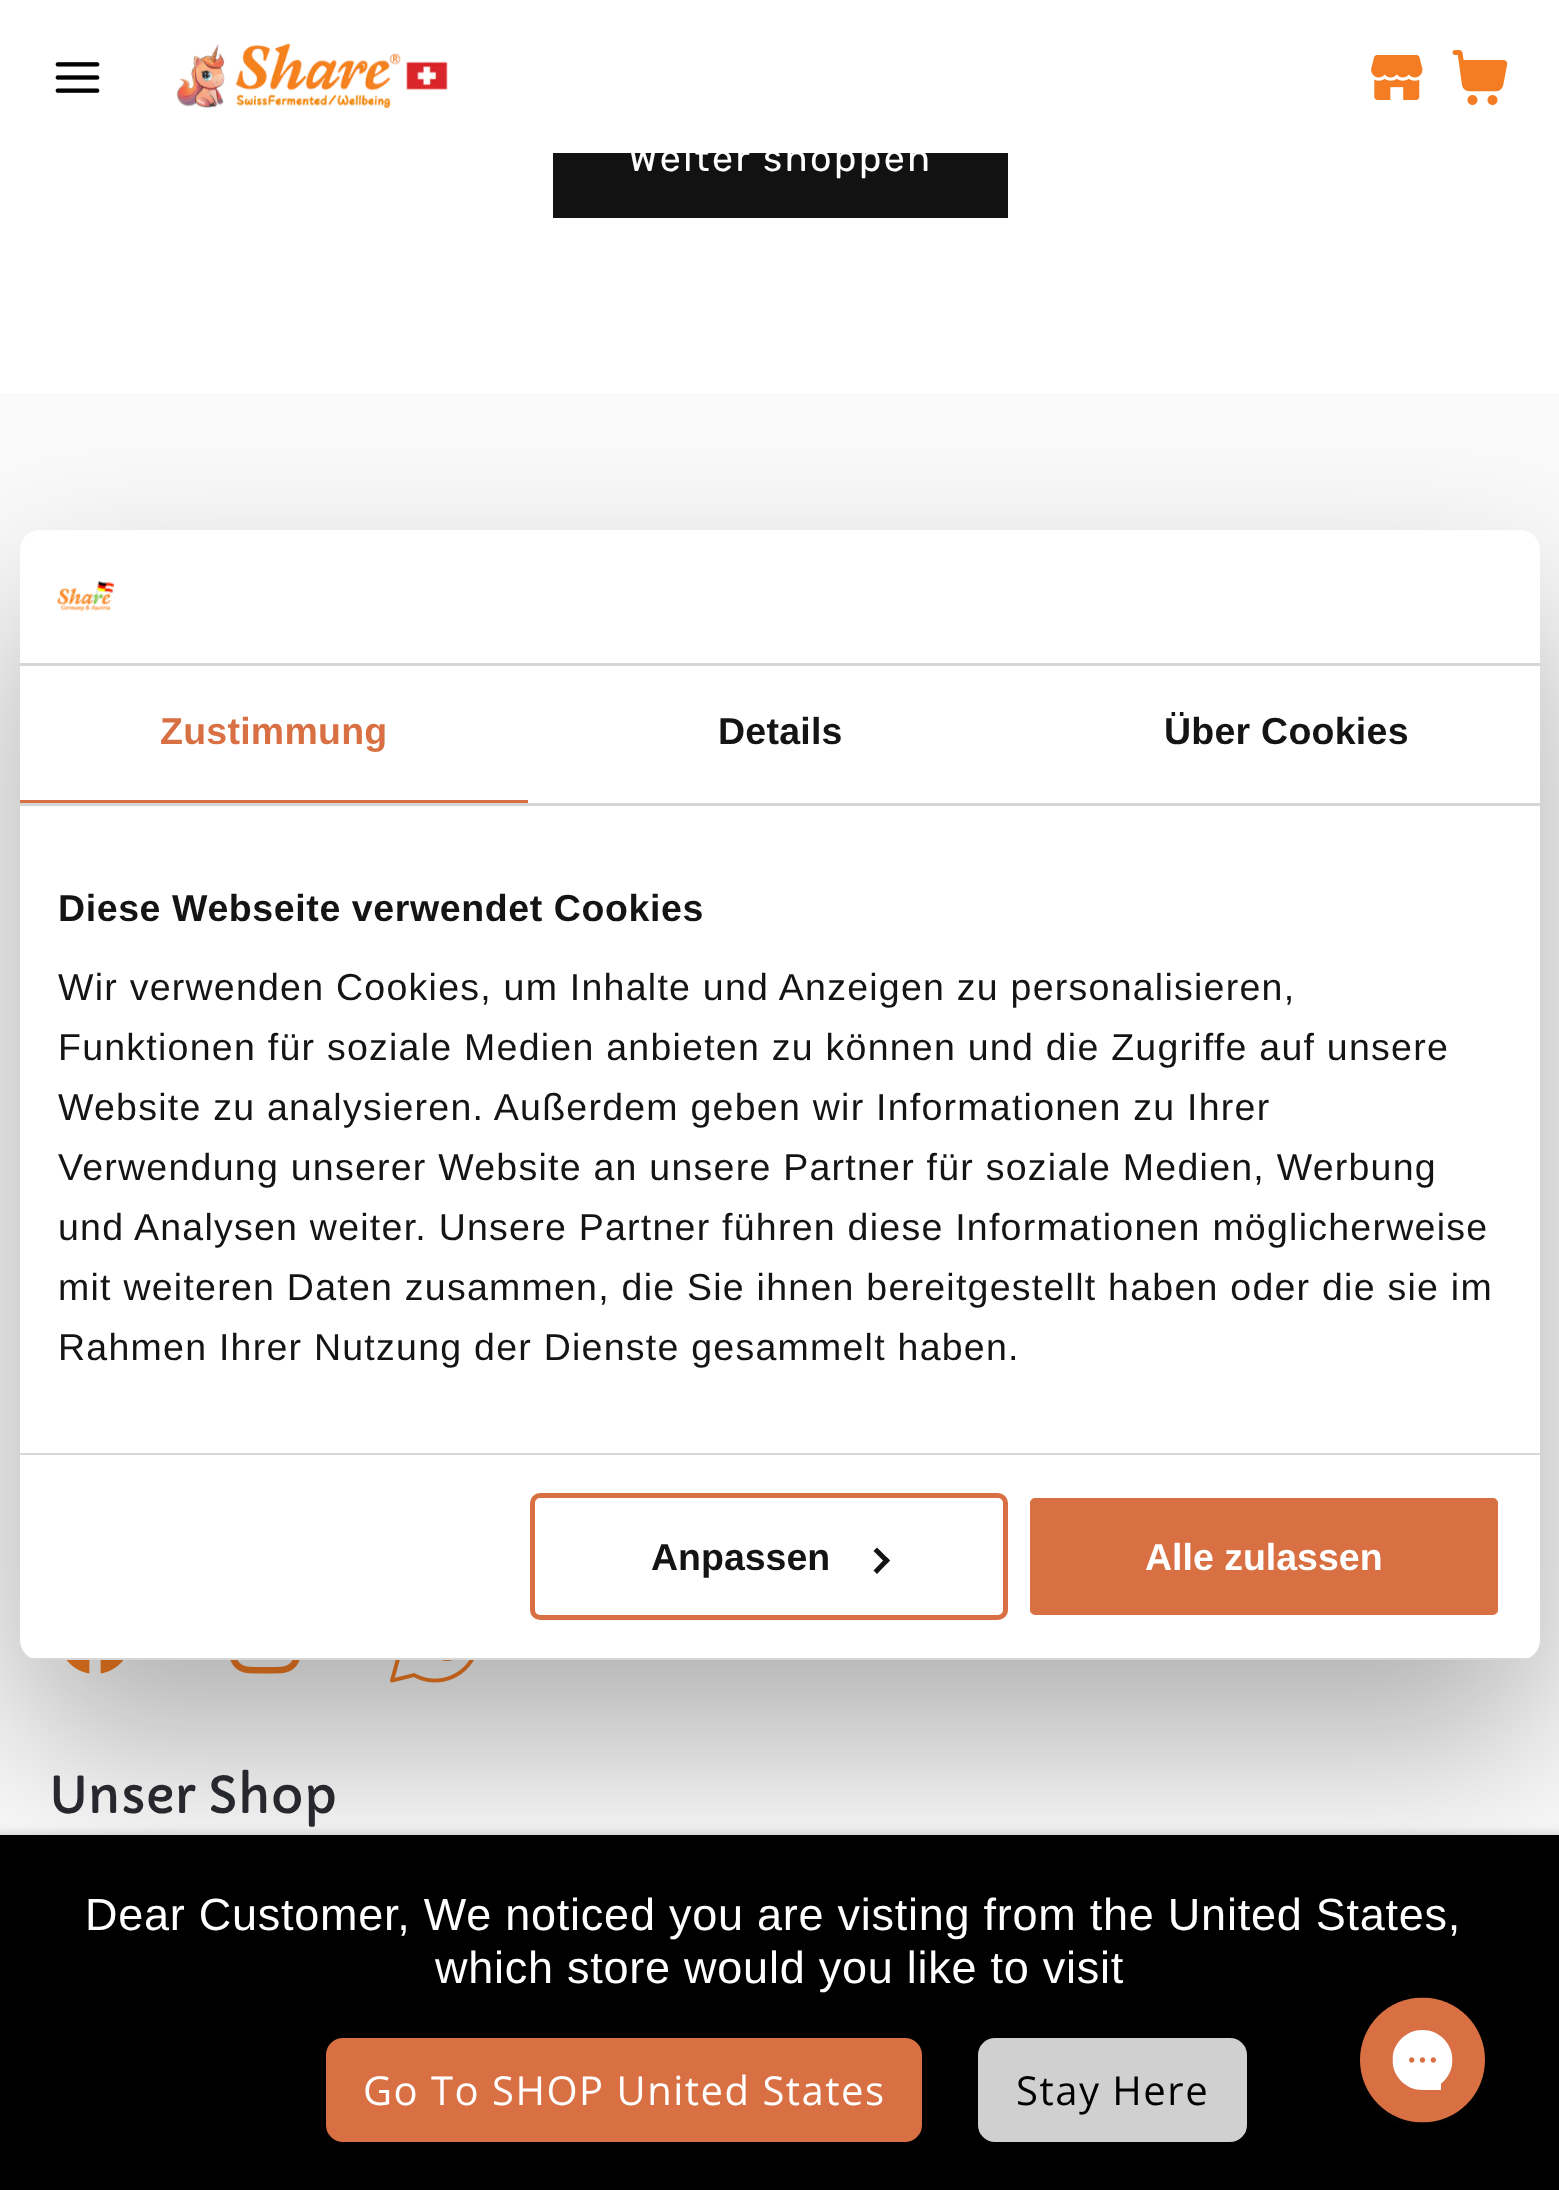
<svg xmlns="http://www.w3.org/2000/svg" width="1559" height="2190">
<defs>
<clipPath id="clip1"><rect x="20" y="530" width="1520" height="1130" rx="20"/></clipPath>
</defs>
<rect width="100%" height="100%" fill="#fff"/>
<image x="176" y="43" width="272" height="66" href="media/1.png"/>
<image x="55" y="62" width="45" height="31" href="media/2.png"/>
<image x="1371" y="55" width="52" height="45" href="media/3.png"/>
<image x="1452" y="50" width="56" height="55" href="media/4.png"/>
<rect x="553" y="153" width="455" height="65" fill="#121212"/>
<text x="628" y="171" style="font-family:Rubik;font-size:37.5px;letter-spacing:2.5px;fill:#fff">Weiter shoppen</text>
<rect y="393" width="1559" height="1442" fill="#fafafa"/>
<image x="66" y="1660" width="58" height="14" href="media/6.png"/>
<image x="230" y="1660" width="70" height="14" href="media/7.png"/>
<image x="390" y="1660" width="84" height="23" href="media/8.png"/>
<rect x="-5" y="1833" width="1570" height="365" fill="#00000026" filter="blur(4px)"/>
<rect y="1835" width="1559" height="355" fill="#000"/>
<rect x="20" y="610" width="1520" height="1130" rx="20" fill="#0000004d" filter="blur(85px)"/>
<rect x="20" y="530" width="1520" height="1130" rx="20" fill="#fff"/>
<rect x="20" y="663" width="1520" height="3" fill="#d6d6d6"/>
<image x="57" y="581" width="57" height="31" href="media/5.png"/>
<rect x="20" y="803" width="1520" height="3" fill="#d6d6d6"/>
<rect x="20" y="800" width="508" height="3" fill="#d97043"/>
<text x="160" y="744" style="font-family:Liberation Sans;font-size:37.5px;font-weight:bold;letter-spacing:0.25px;fill:#d97043">Zustimmung</text>
<text x="718" y="744" style="font-family:Liberation Sans;font-size:37.5px;font-weight:bold;letter-spacing:0.25px;fill:#141414">Details</text>
<text x="1164" y="744" style="font-family:Liberation Sans;font-size:37.5px;font-weight:bold;letter-spacing:0.25px;fill:#141414">Über Cookies</text>
<rect x="20" y="1453" width="1520" height="2" fill="#d6d6d6"/>
<text x="58" y="921" style="font-family:Liberation Sans;font-size:37.5px;font-weight:bold;letter-spacing:0.6px;fill:#141414">Diese Webseite verwendet Cookies</text>
<text x="58" y="1000" style="font-family:Liberation Sans;font-size:37.5px;letter-spacing:1.25px;fill:#141414">Wir verwenden Cookies, um Inhalte und Anzeigen zu personalisieren,</text>
<text x="58" y="1060" style="font-family:Liberation Sans;font-size:37.5px;letter-spacing:1.25px;fill:#141414">Funktionen für soziale Medien anbieten zu können und die Zugriffe auf unsere</text>
<text x="58" y="1120" style="font-family:Liberation Sans;font-size:37.5px;letter-spacing:1.25px;fill:#141414">Website zu analysieren. Außerdem geben wir Informationen zu Ihrer</text>
<text x="58" y="1180" style="font-family:Liberation Sans;font-size:37.5px;letter-spacing:1.25px;fill:#141414">Verwendung unserer Website an unsere Partner für soziale Medien, Werbung</text>
<text x="58" y="1240" style="font-family:Liberation Sans;font-size:37.5px;letter-spacing:1.25px;fill:#141414">und Analysen weiter. Unsere Partner führen diese Informationen möglicherweise</text>
<text x="58" y="1300" style="font-family:Liberation Sans;font-size:37.5px;letter-spacing:1.25px;fill:#141414">mit weiteren Daten zusammen, die Sie ihnen bereitgestellt haben oder die sie im</text>
<text x="58" y="1360" style="font-family:Liberation Sans;font-size:37.5px;letter-spacing:1.25px;fill:#141414">Rahmen Ihrer Nutzung der Dienste gesammelt haben.</text>
<g clip-path="url(#clip1)">
<rect x="31" y="1658" width="1498" height="2" fill="#d6d6d6"/>
</g>
<rect x="532.5" y="1495.5" width="473" height="122" rx="7.5" fill="none" stroke="#d97043" stroke-width="5"/>
<text x="651" y="1570" style="font-family:Liberation Sans;font-size:37.5px;font-weight:bold;fill:#141414">Anpassen</text>
<path d="M877 1547.5l13 13l-3.5 3.5l-13-13z" fill="#141414"/>
<path d="M886.5 1557l3.5 3.5l-13 13.5l-3.5-3.5z" fill="#141414"/>
<rect x="1027.5" y="1495.5" width="473" height="122" rx="7.5" fill="#d97043" stroke="#fff" stroke-width="5"/>
<text x="1145" y="1570" style="font-family:Liberation Sans;font-size:37.5px;font-weight:bold;fill:#fff">Alle zulassen</text>
<text x="50" y="1813" style="font-family:Capriola;font-size:50px;fill:#27282d">Unser Shop</text>
<text x="85" y="1930" style="font-family:Liberation Sans;font-size:45px;letter-spacing:0.75px;fill:#fff">Dear Customer, We noticed you are visting from the United States,</text>
<text x="435" y="1983" style="font-family:Liberation Sans;font-size:45px;letter-spacing:0.75px;fill:#fff">which store would you like to visit</text>
<rect x="324.5" y="2036.5" width="599" height="107" rx="18.5" fill="#d97043" stroke="#000" stroke-width="3"/>
<text x="363" y="2105" style="font-family:Open Sans;font-size:40px;letter-spacing:1.5px;fill:#fff">Go To SHOP United States</text>
<rect x="976.5" y="2036.5" width="272" height="107" rx="18.5" fill="#d0d0d0" stroke="#000" stroke-width="3"/>
<text x="1016" y="2105" style="font-family:Open Sans;font-size:40px;letter-spacing:1.5px;fill:#000">Stay Here</text>
<image x="1360" y="1997" width="125" height="126" href="media/9.png"/>
</svg>
